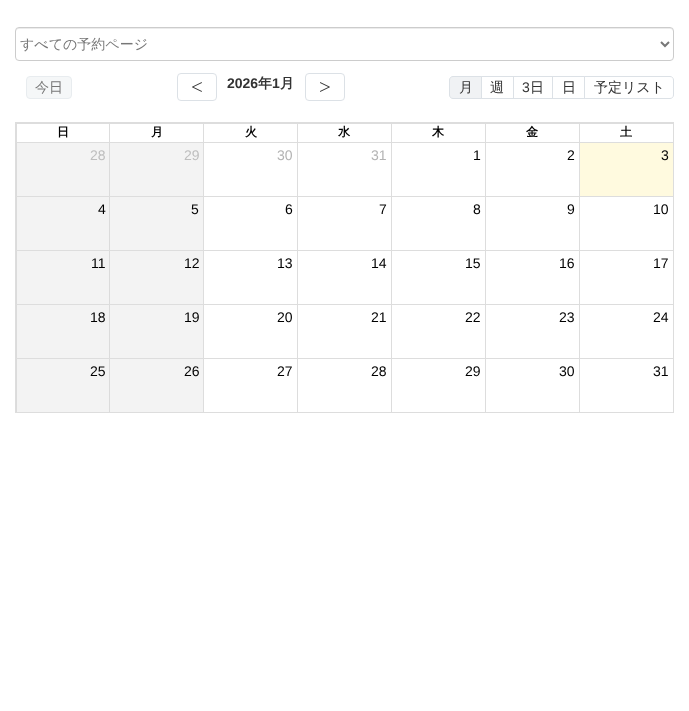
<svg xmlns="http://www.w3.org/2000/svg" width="689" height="711">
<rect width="100%" height="100%" fill="#fff"/>
<rect x="17" y="359" width="186" height="53" fill="#f3f3f3"/>
<rect x="17" y="305" width="186" height="53" fill="#f3f3f3"/>
<rect x="17" y="251" width="186" height="53" fill="#f3f3f3"/>
<rect x="17" y="197" width="186" height="53" fill="#f3f3f3"/>
<rect x="17" y="143" width="186" height="53" fill="#f3f3f3"/>
<path d="M19 29h651c2 0 3 1 3 3v-1c0-2-1-3-3-3h-651c-2 0-3 1-3 3v1c0-2 1-3 3-3z" fill="#ececec"/>
<rect x="15.5" y="27.5" width="658" height="33" rx="3.5" fill="none" stroke="#ccc"/>
<path d="M661 42l4 4l4-4" fill="none" stroke="#777" stroke-width="2"/>
<text x="20" y="49" style="font-family:WenQuanYi Zen Hei;font-size:14px;font-weight:500;fill:#777">すべての予約ページ</text>
<rect x="26.5" y="76.5" width="45" height="22" rx="3.5" fill="#f5f7f8" stroke="#e8ecef"/>
<text x="35" y="92" style="font-family:WenQuanYi Zen Hei;font-size:14px;font-weight:500;fill:#777">今日</text>
<rect x="177.5" y="73.5" width="39" height="27" rx="3.5" fill="none" stroke="#dce1e6"/>
<text x="191" y="94" style="font-family:Liberation Serif;font-size:21px;fill:#333">&lt;</text>
<text x="227" y="88" style="font-family:Liberation Sans;font-size:14px;font-weight:bold;fill:#333">2026</text>
<text x="258" y="88" style="font-family:WenQuanYi Zen Hei;font-size:14px;font-weight:bold;fill:#333">年</text>
<text x="272" y="88" style="font-family:Liberation Sans;font-size:14px;font-weight:bold;fill:#333">1</text>
<text x="280" y="88" style="font-family:WenQuanYi Zen Hei;font-size:14px;font-weight:bold;fill:#333">月</text>
<rect x="305.5" y="73.5" width="39" height="27" rx="3.5" fill="none" stroke="#dce1e6"/>
<text x="319" y="94" style="font-family:Liberation Serif;font-size:21px;fill:#333">&gt;</text>
<rect x="481.5" y="76.5" width="32" height="22" fill="none" stroke="#dce1e6"/>
<path d="M453 76.5h28.5v22h-28.5c-2 0-3.5-1.5-3.5-3.5v-15c0-2 1.5-3.5 3.5-3.5z" fill="#f0f2f4" stroke="#dce1e6"/>
<text x="459" y="92" style="font-family:WenQuanYi Zen Hei;font-size:14px;font-weight:500;fill:#333">月</text>
<text x="490" y="92" style="font-family:WenQuanYi Zen Hei;font-size:14px;font-weight:500;fill:#333">週</text>
<rect x="513.5" y="76.5" width="39" height="22" fill="none" stroke="#dce1e6"/>
<text x="522" y="92" style="font-family:Liberation Sans;font-size:14px;fill:#333">3</text>
<text x="530" y="92" style="font-family:WenQuanYi Zen Hei;font-size:14px;font-weight:500;fill:#333">日</text>
<rect x="552.5" y="76.5" width="32" height="22" fill="none" stroke="#dce1e6"/>
<text x="562" y="92" style="font-family:WenQuanYi Zen Hei;font-size:14px;font-weight:500;fill:#333">日</text>
<path d="M584.5 76.5h85.5c2 0 3.5 1.5 3.5 3.5v15c0 2-1.5 3.5-3.5 3.5h-85.5z" fill="#fff" stroke="#dce1e6"/>
<text x="594" y="92" style="font-family:WenQuanYi Zen Hei;font-size:14px;font-weight:500;fill:#333">予定リスト</text>
<rect x="15" y="122" width="659" height="1" fill="#ddd"/>
<rect x="15" y="122" width="1" height="291" fill="#ddd"/>
<rect x="579" y="123" width="94" height="1" fill="#ddd"/>
<rect x="579" y="142" width="94" height="1" fill="#ddd"/>
<rect x="579" y="123" width="1" height="20" fill="#ddd"/>
<rect x="485" y="123" width="95" height="1" fill="#ddd"/>
<rect x="485" y="142" width="95" height="1" fill="#ddd"/>
<rect x="485" y="123" width="1" height="20" fill="#ddd"/>
<rect x="391" y="123" width="95" height="1" fill="#ddd"/>
<rect x="391" y="142" width="95" height="1" fill="#ddd"/>
<rect x="391" y="123" width="1" height="20" fill="#ddd"/>
<rect x="297" y="123" width="95" height="1" fill="#ddd"/>
<rect x="297" y="142" width="95" height="1" fill="#ddd"/>
<rect x="297" y="123" width="1" height="20" fill="#ddd"/>
<rect x="203" y="123" width="95" height="1" fill="#ddd"/>
<rect x="203" y="142" width="95" height="1" fill="#ddd"/>
<rect x="203" y="123" width="1" height="20" fill="#ddd"/>
<rect x="109" y="123" width="95" height="1" fill="#ddd"/>
<rect x="109" y="142" width="95" height="1" fill="#ddd"/>
<rect x="109" y="123" width="1" height="20" fill="#ddd"/>
<rect x="16" y="123" width="94" height="1" fill="#ddd"/>
<rect x="16" y="142" width="94" height="1" fill="#ddd"/>
<rect x="16" y="123" width="1" height="20" fill="#ddd"/>
<text x="57" y="136" style="font-family:WenQuanYi Zen Hei;font-size:12px;font-weight:bold;fill:#000">日</text>
<text x="151" y="136" style="font-family:WenQuanYi Zen Hei;font-size:12px;font-weight:bold;fill:#000">月</text>
<text x="245" y="136" style="font-family:WenQuanYi Zen Hei;font-size:12px;font-weight:bold;fill:#000">火</text>
<text x="338" y="136" style="font-family:WenQuanYi Zen Hei;font-size:12px;font-weight:bold;fill:#000">水</text>
<text x="432" y="136" style="font-family:WenQuanYi Zen Hei;font-size:12px;font-weight:bold;fill:#000">木</text>
<text x="526" y="136" style="font-family:WenQuanYi Zen Hei;font-size:12px;font-weight:bold;fill:#000">金</text>
<text x="620" y="136" style="font-family:WenQuanYi Zen Hei;font-size:12px;font-weight:bold;fill:#000">土</text>
<rect x="673" y="123" width="1" height="290" fill="#ddd"/>
<rect x="16" y="412" width="658" height="1" fill="#ddd"/>
<rect x="16" y="143" width="1" height="53" fill="#dbdbdb"/>
<text x="90" y="160" style="font-family:Liberation Sans;font-size:14px;fill:#bebebe">28</text>
<rect x="109" y="143" width="1" height="53" fill="#dbdbdb"/>
<text x="184" y="160" style="font-family:Liberation Sans;font-size:14px;fill:#bebebe">29</text>
<rect x="579" y="196" width="94" height="1" fill="#ddd"/>
<rect x="579" y="250" width="94" height="1" fill="#ddd"/>
<rect x="579" y="304" width="94" height="1" fill="#ddd"/>
<rect x="579" y="358" width="94" height="1" fill="#ddd"/>
<rect x="579" y="358" width="1" height="54" fill="#ddd"/>
<rect x="485" y="358" width="95" height="1" fill="#ddd"/>
<rect x="579" y="304" width="1" height="55" fill="#ddd"/>
<rect x="485" y="304" width="95" height="1" fill="#ddd"/>
<rect x="579" y="250" width="1" height="55" fill="#ddd"/>
<rect x="485" y="250" width="95" height="1" fill="#ddd"/>
<rect x="579" y="196" width="1" height="55" fill="#ddd"/>
<rect x="485" y="196" width="95" height="1" fill="#ddd"/>
<rect x="485" y="358" width="1" height="54" fill="#ddd"/>
<rect x="391" y="358" width="95" height="1" fill="#ddd"/>
<rect x="485" y="304" width="1" height="55" fill="#ddd"/>
<rect x="391" y="304" width="95" height="1" fill="#ddd"/>
<rect x="485" y="250" width="1" height="55" fill="#ddd"/>
<rect x="391" y="250" width="95" height="1" fill="#ddd"/>
<rect x="485" y="196" width="1" height="55" fill="#ddd"/>
<rect x="391" y="196" width="95" height="1" fill="#ddd"/>
<rect x="391" y="358" width="1" height="54" fill="#ddd"/>
<rect x="297" y="358" width="95" height="1" fill="#ddd"/>
<rect x="391" y="304" width="1" height="55" fill="#ddd"/>
<rect x="297" y="304" width="95" height="1" fill="#ddd"/>
<rect x="391" y="250" width="1" height="55" fill="#ddd"/>
<rect x="297" y="250" width="95" height="1" fill="#ddd"/>
<rect x="391" y="196" width="1" height="55" fill="#ddd"/>
<rect x="297" y="196" width="95" height="1" fill="#ddd"/>
<rect x="297" y="358" width="1" height="54" fill="#ddd"/>
<rect x="203" y="358" width="95" height="1" fill="#ddd"/>
<rect x="297" y="304" width="1" height="55" fill="#ddd"/>
<rect x="203" y="304" width="95" height="1" fill="#ddd"/>
<rect x="297" y="250" width="1" height="55" fill="#ddd"/>
<rect x="203" y="250" width="95" height="1" fill="#ddd"/>
<rect x="297" y="196" width="1" height="55" fill="#ddd"/>
<rect x="203" y="196" width="95" height="1" fill="#ddd"/>
<rect x="203" y="358" width="1" height="54" fill="#ddd"/>
<rect x="16" y="358" width="188" height="1" fill="#ddd"/>
<rect x="203" y="304" width="1" height="55" fill="#ddd"/>
<rect x="16" y="304" width="188" height="1" fill="#ddd"/>
<rect x="203" y="250" width="1" height="55" fill="#ddd"/>
<rect x="16" y="250" width="188" height="1" fill="#ddd"/>
<rect x="203" y="196" width="1" height="55" fill="#ddd"/>
<rect x="16" y="196" width="188" height="1" fill="#ddd"/>
<rect x="203" y="143" width="1" height="54" fill="#ddd"/>
<text x="277" y="160" style="font-family:Liberation Sans;font-size:14px;fill:#b3b3b3">30</text>
<rect x="297" y="143" width="1" height="54" fill="#ddd"/>
<text x="371" y="160" style="font-family:Liberation Sans;font-size:14px;fill:#b3b3b3">31</text>
<rect x="391" y="143" width="1" height="54" fill="#ddd"/>
<text x="473" y="160" style="font-family:Liberation Sans;font-size:14px;fill:#000">1</text>
<rect x="485" y="143" width="1" height="54" fill="#ddd"/>
<text x="567" y="160" style="font-family:Liberation Sans;font-size:14px;fill:#000">2</text>
<rect x="580" y="143" width="93" height="53" fill="#fffadf"/>
<rect x="579" y="143" width="1" height="54" fill="#ddd"/>
<text x="661" y="160" style="font-family:Liberation Sans;font-size:14px;fill:#000">3</text>
<rect x="16" y="197" width="1" height="53" fill="#dbdbdb"/>
<text x="98" y="214" style="font-family:Liberation Sans;font-size:14px;fill:#000">4</text>
<rect x="109" y="197" width="1" height="53" fill="#dbdbdb"/>
<text x="191" y="214" style="font-family:Liberation Sans;font-size:14px;fill:#000">5</text>
<text x="285" y="214" style="font-family:Liberation Sans;font-size:14px;fill:#000">6</text>
<text x="379" y="214" style="font-family:Liberation Sans;font-size:14px;fill:#000">7</text>
<text x="473" y="214" style="font-family:Liberation Sans;font-size:14px;fill:#000">8</text>
<text x="567" y="214" style="font-family:Liberation Sans;font-size:14px;fill:#000">9</text>
<text x="653" y="214" style="font-family:Liberation Sans;font-size:14px;fill:#000">10</text>
<rect x="16" y="251" width="1" height="53" fill="#dbdbdb"/>
<text x="91" y="268" style="font-family:Liberation Sans;font-size:14px;fill:#000">11</text>
<rect x="109" y="251" width="1" height="53" fill="#dbdbdb"/>
<text x="184" y="268" style="font-family:Liberation Sans;font-size:14px;fill:#000">12</text>
<text x="277" y="268" style="font-family:Liberation Sans;font-size:14px;fill:#000">13</text>
<text x="371" y="268" style="font-family:Liberation Sans;font-size:14px;fill:#000">14</text>
<text x="465" y="268" style="font-family:Liberation Sans;font-size:14px;fill:#000">15</text>
<text x="559" y="268" style="font-family:Liberation Sans;font-size:14px;fill:#000">16</text>
<text x="653" y="268" style="font-family:Liberation Sans;font-size:14px;fill:#000">17</text>
<rect x="16" y="305" width="1" height="53" fill="#dbdbdb"/>
<text x="90" y="322" style="font-family:Liberation Sans;font-size:14px;fill:#000">18</text>
<rect x="109" y="305" width="1" height="53" fill="#dbdbdb"/>
<text x="184" y="322" style="font-family:Liberation Sans;font-size:14px;fill:#000">19</text>
<text x="277" y="322" style="font-family:Liberation Sans;font-size:14px;fill:#000">20</text>
<text x="371" y="322" style="font-family:Liberation Sans;font-size:14px;fill:#000">21</text>
<text x="465" y="322" style="font-family:Liberation Sans;font-size:14px;fill:#000">22</text>
<text x="559" y="322" style="font-family:Liberation Sans;font-size:14px;fill:#000">23</text>
<text x="653" y="322" style="font-family:Liberation Sans;font-size:14px;fill:#000">24</text>
<rect x="16" y="359" width="1" height="53" fill="#dbdbdb"/>
<text x="90" y="376" style="font-family:Liberation Sans;font-size:14px;fill:#000">25</text>
<rect x="109" y="359" width="1" height="53" fill="#dbdbdb"/>
<text x="184" y="376" style="font-family:Liberation Sans;font-size:14px;fill:#000">26</text>
<text x="277" y="376" style="font-family:Liberation Sans;font-size:14px;fill:#000">27</text>
<text x="371" y="376" style="font-family:Liberation Sans;font-size:14px;fill:#000">28</text>
<text x="465" y="376" style="font-family:Liberation Sans;font-size:14px;fill:#000">29</text>
<text x="559" y="376" style="font-family:Liberation Sans;font-size:14px;fill:#000">30</text>
<text x="653" y="376" style="font-family:Liberation Sans;font-size:14px;fill:#000">31</text>
</svg>
